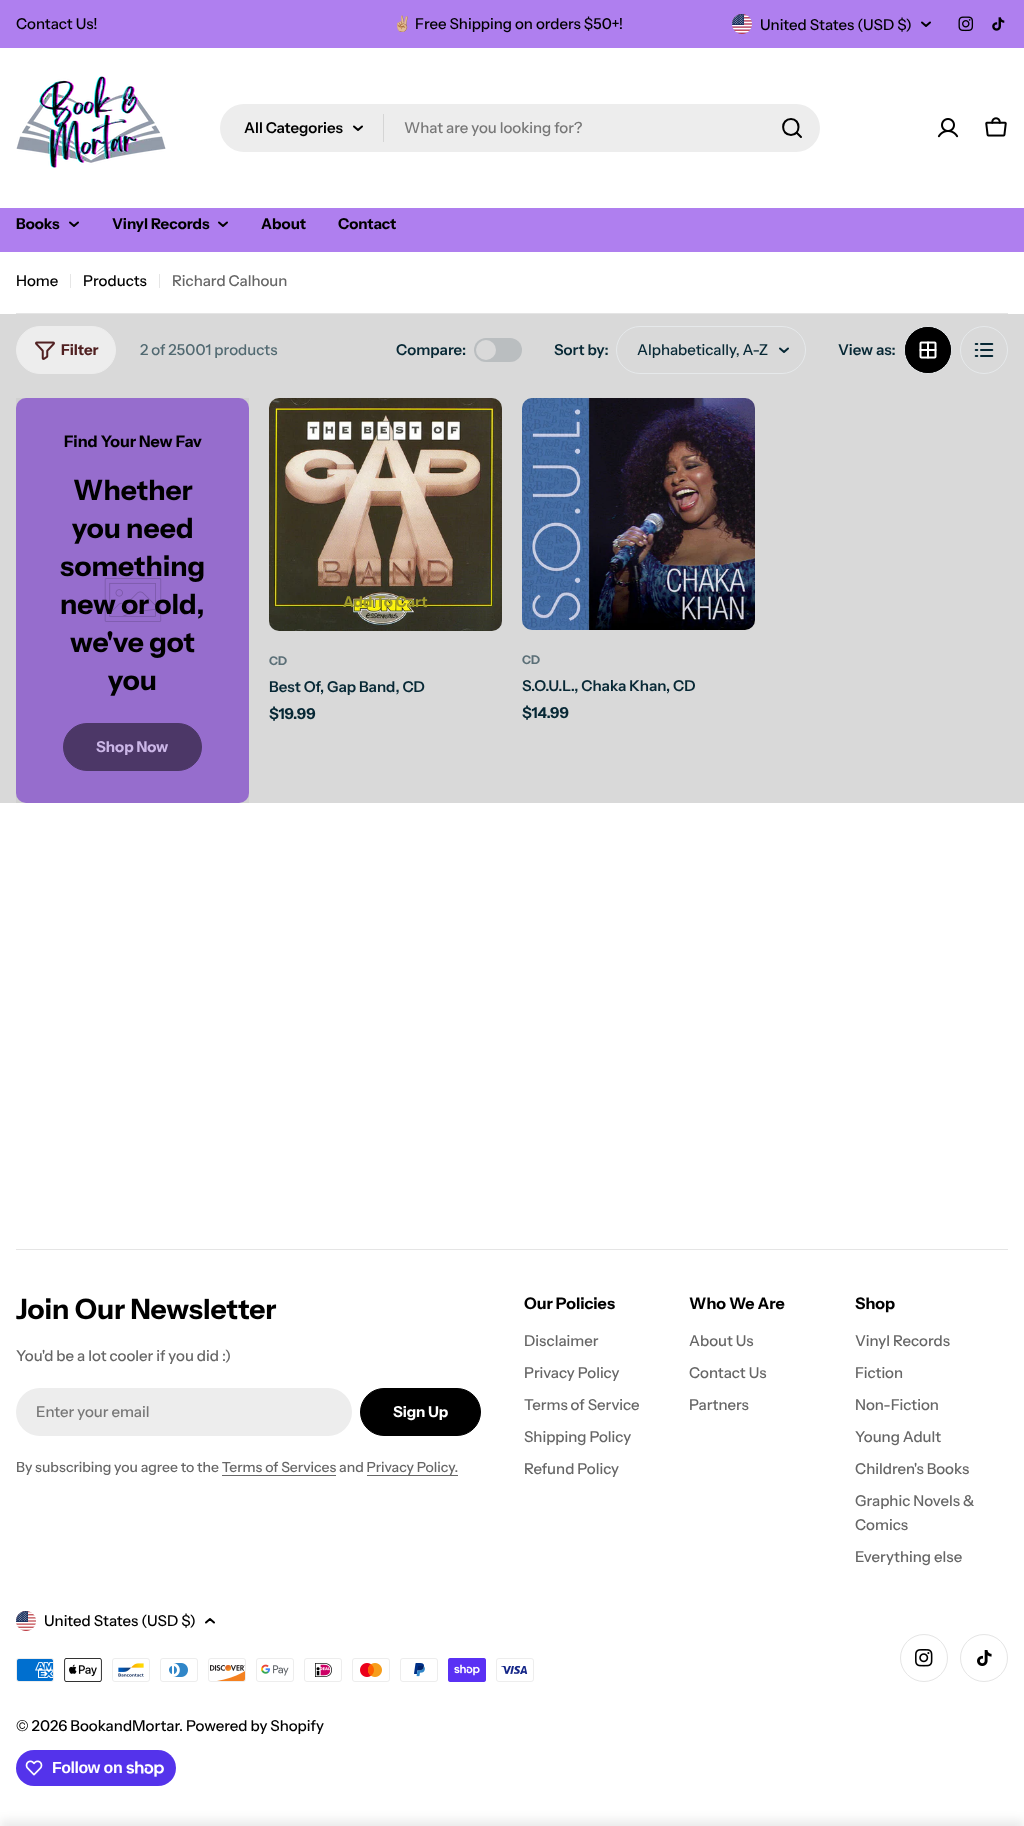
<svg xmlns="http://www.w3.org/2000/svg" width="1024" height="1826">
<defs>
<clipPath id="clip1"><rect x="905" y="327" width="46" height="46" rx="23"/></clipPath>
</defs>
<rect width="100%" height="100%" fill="#fff"/>
<rect width="1024" height="48" fill="#af7fef"/>
<text x="16" y="29" style="font-family:Instrument Sans;font-size:15px;font-weight:500;fill:#000">Contact Us!</text>
<text x="393" y="29" style="font-family:Noto Color Emoji;font-size:15px;fill:#000">✌🏼</text>
<text x="415" y="29" style="font-family:Instrument Sans;font-size:15px;font-weight:500;fill:#000">Free Shipping on orders $50+!</text>
<image x="732" y="14" width="20" height="20" href="media/1.png"/>
<text x="760" y="30" style="font-family:Instrument Sans;font-size:15px;font-weight:500;fill:#000">United States (USD $)</text>
<path d="M930 22.5l-4 3.5l-4-3.5" fill="none" stroke="#000" stroke-width="2" stroke-linecap="round" stroke-linejoin="round"/>
<image x="958" y="16" width="16" height="16" href="media/2.png"/>
<image x="992" y="17" width="13" height="14" href="media/3.png"/>
<image x="16" y="76" width="150" height="92" href="media/4.png"/>
<rect x="220" y="104" width="600" height="48" rx="24" fill="#ededed"/>
<text x="244" y="133" style="font-family:Instrument Sans;font-size:15px;font-weight:600;fill:#000">All Categories</text>
<path d="M362 126.5l-4 3.5l-4-3.5" fill="none" stroke="#000" stroke-width="2" stroke-linecap="round" stroke-linejoin="round"/>
<rect x="383" y="114" width="1" height="28" fill="#d5d5d5"/>
<text x="404" y="133" style="font-family:Instrument Sans;font-size:15px;font-weight:500;fill:#777">What are you looking for?</text>
<path d="M791 135c10 0 10-16 0-16c-10.5 0-10.5 16 0 16zm5.5-2.5l4.5 4.5" fill="none" stroke="#000" stroke-width="2" stroke-linecap="round" stroke-linejoin="round"/>
<image x="937" y="118" width="22" height="20" href="media/5.png"/>
<image x="985" y="117" width="22" height="20" href="media/6.png"/>
<rect y="208" width="1024" height="44" fill="#af7fef"/>
<text x="16" y="229" style="font-family:Instrument Sans;font-size:15px;font-weight:bold;fill:#000">Books</text>
<path d="M78 222.5l-4 3.5l-4-3.5" fill="none" stroke="#000" stroke-width="2" stroke-linecap="round" stroke-linejoin="round"/>
<text x="112" y="229" style="font-family:Instrument Sans;font-size:15px;font-weight:bold;fill:#000">Vinyl Records</text>
<path d="M227 222.5l-4 3.5l-4-3.5" fill="none" stroke="#000" stroke-width="2" stroke-linecap="round" stroke-linejoin="round"/>
<text x="261" y="229" style="font-family:Instrument Sans;font-size:15px;font-weight:bold;fill:#000">About</text>
<text x="338" y="229" style="font-family:Instrument Sans;font-size:15px;font-weight:bold;fill:#000">Contact</text>
<text x="16" y="286" style="font-family:Instrument Sans;font-size:15px;font-weight:500;fill:#000">Home</text>
<rect x="70" y="274" width="1" height="14" fill="#e6e6e6"/>
<text x="83" y="286" style="font-family:Instrument Sans;font-size:15px;font-weight:500;fill:#000">Products</text>
<rect x="159" y="274" width="1" height="14" fill="#e6e6e6"/>
<text x="172" y="286" style="font-family:Instrument Sans;font-size:15px;font-weight:500;fill:#666">Richard Calhoun</text>
<rect x="16" y="313" width="992" height="1" fill="#e5e5e5"/>
<rect y="314" width="1024" height="489" fill="#d9d9d9"/>
<rect x="16.5" y="326.5" width="99" height="47" rx="23.5" fill="#ededed" stroke="#ededed"/>
<image x="35" y="341" width="20" height="19" href="media/7.png"/>
<text x="61" y="355" style="font-family:Instrument Sans;font-size:15px;font-weight:bold;fill:#502021">Filter</text>
<text x="140" y="355" style="font-family:Instrument Sans;font-size:15px;font-weight:500;fill:#516971">2 of 25001 products</text>
<text x="396" y="355" style="font-family:Instrument Sans;font-size:15px;font-weight:600;fill:#072835">Compare:</text>
<rect x="474" y="338" width="48" height="24" rx="12" fill="#babec0"/>
<circle cx="486" cy="350" r="10" fill="#d9d9d9"/>
<text x="554" y="355" style="font-family:Instrument Sans;font-size:15px;font-weight:600;fill:#072835">Sort by:</text>
<rect x="616.5" y="326.5" width="189" height="47" rx="23.5" fill="none" stroke="#e6e9eb"/>
<text x="637" y="355" style="font-family:Instrument Sans;font-size:15px;font-weight:500;fill:#072835">Alphabetically, A-Z</text>
<path d="M788 348.5l-4 3.5l-4-3.5" fill="none" stroke="#072835" stroke-width="2" stroke-linecap="round" stroke-linejoin="round"/>
<text x="838" y="355" style="font-family:Instrument Sans;font-size:15px;font-weight:600;fill:#072835">View as:</text>
<circle cx="928" cy="350" r="23.5" fill="#000" stroke="#e6e9eb"/>
<g clip-path="url(#clip1)">
<rect x="904" y="326" width="47" height="48" rx="23.5" fill="#000"/>
</g>
<image x="919" y="341" width="18" height="18" href="media/8.png"/>
<circle cx="984" cy="350" r="23.5" fill="none" stroke="#e6e9eb"/>
<image x="974" y="343" width="20" height="14" href="media/9.png"/>
<rect x="16" y="398" width="233" height="405" rx="10" fill="#af7fef"/>
<rect x="16" y="398" width="233" height="405" fill="#0000000a"/>
<image x="104" y="578" width="58" height="44" href="media/10.png"/>
<rect x="16" y="398" width="233" height="405" rx="10" fill="#0000001a"/>
<text x="64" y="447" style="font-family:Instrument Sans;font-size:16px;font-weight:bold;fill:#000">Find Your New Fav</text>
<text x="73" y="500" style="font-family:Instrument Sans;font-size:28px;font-weight:bold;fill:#000">Whether</text>
<text x="72" y="538" style="font-family:Instrument Sans;font-size:28px;font-weight:bold;fill:#000">you need</text>
<text x="60" y="576" style="font-family:Instrument Sans;font-size:28px;font-weight:bold;fill:#000">something</text>
<text x="60" y="614" style="font-family:Instrument Sans;font-size:28px;font-weight:bold;fill:#000">new or old,</text>
<text x="70" y="652" style="font-family:Instrument Sans;font-size:28px;font-weight:bold;fill:#000">we've got</text>
<text x="108" y="690" style="font-family:Instrument Sans;font-size:28px;font-weight:bold;fill:#000">you</text>
<rect x="63.5" y="723.5" width="138" height="47" rx="23.5" fill="#4c3767" stroke="#4c3767"/>
<text x="96" y="752" style="font-family:Instrument Sans;font-size:15px;font-weight:bold;fill:#cbb6e7">Shop Now</text>
<image x="269" y="398" width="233" height="233" href="media/11.png"/>
<text x="343" y="607" style="font-family:Instrument Sans;font-size:15px;font-weight:bold;fill:#9d982c">Add To Cart</text>
<text x="269" y="665" style="font-family:Instrument Sans;font-size:12px;font-weight:bold;fill:#5b6f77">CD</text>
<text x="269" y="692" style="font-family:Instrument Sans;font-size:15px;font-weight:600;fill:#072835">Best Of, Gap Band, CD</text>
<text x="269" y="719" style="font-family:Instrument Sans;font-size:15px;font-weight:bold;fill:#072835">$19.99</text>
<image x="522" y="398" width="233" height="232" href="media/12.png"/>
<text x="522" y="664" style="font-family:Instrument Sans;font-size:12px;font-weight:bold;fill:#5b6f77">CD</text>
<text x="522" y="691" style="font-family:Instrument Sans;font-size:15px;font-weight:600;fill:#072835">S.O.U.L., Chaka Khan, CD</text>
<text x="522" y="718" style="font-family:Instrument Sans;font-size:15px;font-weight:bold;fill:#072835">$14.99</text>
<rect y="1820" width="1024" height="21" fill="#00000014" filter="blur(5px)"/>
<rect x="16" y="1249" width="992" height="1" fill="#e5e5e5"/>
<text x="16" y="1319" style="font-family:Instrument Sans;font-size:28px;font-weight:bold;fill:#000">Join Our Newsletter</text>
<text x="16" y="1361" style="font-family:Instrument Sans;font-size:15px;font-weight:500;fill:#666">You'd be a lot cooler if you did :)</text>
<rect x="16" y="1388" width="336" height="48" rx="24" fill="#ededed"/>
<text x="36" y="1417" style="font-family:Instrument Sans;font-size:15px;font-weight:500;fill:#777">Enter your email</text>
<rect x="360.5" y="1388.5" width="120" height="47" rx="23.5" fill="#000" stroke="#000"/>
<text x="393" y="1417" style="font-family:Instrument Sans;font-size:15px;font-weight:bold;fill:#fff">Sign Up</text>
<text x="16" y="1472" style="font-family:Instrument Sans;font-size:14px;font-weight:500;fill:#666">By subscribing you agree to the Terms of Services and Privacy Policy.</text>
<rect x="222" y="1475" width="114" height="1" fill="#666"/>
<rect x="367" y="1475" width="91" height="1" fill="#666"/>
<text x="524" y="1309" style="font-family:Instrument Sans;font-size:16px;font-weight:bold;fill:#000">Our Policies</text>
<text x="524" y="1346" style="font-family:Instrument Sans;font-size:15px;font-weight:500;fill:#666">Disclaimer</text>
<text x="524" y="1378" style="font-family:Instrument Sans;font-size:15px;font-weight:500;fill:#666">Privacy Policy</text>
<text x="524" y="1410" style="font-family:Instrument Sans;font-size:15px;font-weight:500;fill:#666">Terms of Service</text>
<text x="524" y="1442" style="font-family:Instrument Sans;font-size:15px;font-weight:500;fill:#666">Shipping Policy</text>
<text x="524" y="1474" style="font-family:Instrument Sans;font-size:15px;font-weight:500;fill:#666">Refund Policy</text>
<text x="689" y="1309" style="font-family:Instrument Sans;font-size:16px;font-weight:bold;fill:#000">Who We Are</text>
<text x="689" y="1346" style="font-family:Instrument Sans;font-size:15px;font-weight:500;fill:#666">About Us</text>
<text x="689" y="1378" style="font-family:Instrument Sans;font-size:15px;font-weight:500;fill:#666">Contact Us</text>
<text x="689" y="1410" style="font-family:Instrument Sans;font-size:15px;font-weight:500;fill:#666">Partners</text>
<text x="855" y="1309" style="font-family:Instrument Sans;font-size:16px;font-weight:bold;fill:#000">Shop</text>
<text x="855" y="1346" style="font-family:Instrument Sans;font-size:15px;font-weight:500;fill:#666">Vinyl Records</text>
<text x="855" y="1378" style="font-family:Instrument Sans;font-size:15px;font-weight:500;fill:#666">Fiction</text>
<text x="855" y="1410" style="font-family:Instrument Sans;font-size:15px;font-weight:500;fill:#666">Non-Fiction</text>
<text x="855" y="1442" style="font-family:Instrument Sans;font-size:15px;font-weight:500;fill:#666">Young Adult</text>
<text x="855" y="1474" style="font-family:Instrument Sans;font-size:15px;font-weight:500;fill:#666">Children's Books</text>
<text x="855" y="1506" style="font-family:Instrument Sans;font-size:15px;font-weight:500;fill:#666">Graphic Novels &amp;</text>
<text x="855" y="1530" style="font-family:Instrument Sans;font-size:15px;font-weight:500;fill:#666">Comics</text>
<text x="855" y="1562" style="font-family:Instrument Sans;font-size:15px;font-weight:500;fill:#666">Everything else</text>
<image x="16" y="1611" width="20" height="20" href="media/13.png"/>
<text x="44" y="1626" style="font-family:Instrument Sans;font-size:15px;font-weight:500;fill:#000">United States (USD $)</text>
<path d="M206 1622.5l4-3.5l4 3.5" fill="none" stroke="#000" stroke-width="2" stroke-linecap="round" stroke-linejoin="round"/>
<image x="16" y="1658" width="38" height="24" href="media/14.png"/>
<image x="64" y="1658" width="38" height="24" href="media/15.png"/>
<image x="112" y="1658" width="38" height="24" href="media/16.png"/>
<image x="160" y="1658" width="38" height="24" href="media/17.png"/>
<image x="208" y="1658" width="38" height="24" href="media/18.png"/>
<image x="256" y="1658" width="38" height="24" href="media/19.png"/>
<image x="304" y="1658" width="38" height="24" href="media/20.png"/>
<image x="352" y="1658" width="38" height="24" href="media/21.png"/>
<image x="400" y="1658" width="38" height="24" href="media/22.png"/>
<image x="448" y="1658" width="38" height="24" href="media/23.png"/>
<image x="496" y="1658" width="38" height="24" href="media/24.png"/>
<circle cx="924" cy="1658" r="23.5" fill="none" stroke="#e5e5e5"/>
<image x="915" y="1649" width="18" height="18" href="media/25.png"/>
<circle cx="984" cy="1658" r="23.5" fill="none" stroke="#e5e5e5"/>
<image x="977" y="1650" width="15" height="16" href="media/26.png"/>
<text x="16" y="1731" style="font-family:Instrument Sans;font-size:15px;font-weight:500;fill:#000">© 2026 BookandMortar</text>
<text x="179" y="1731" style="font-family:Instrument Sans;font-size:15px;font-weight:500;fill:#000">. Powered by Shopify</text>
<rect x="16" y="1750" width="160" height="36" rx="18" fill="#5433eb"/>
<image x="25" y="1760" width="18" height="16" href="media/27.png"/>
<text x="52" y="1773" style="font-family:Liberation Sans;font-size:16px;font-weight:bold;letter-spacing:-0.5px;fill:#fff">Follow on</text>
<image x="126" y="1761" width="38" height="16" href="media/28.png"/>
</svg>
